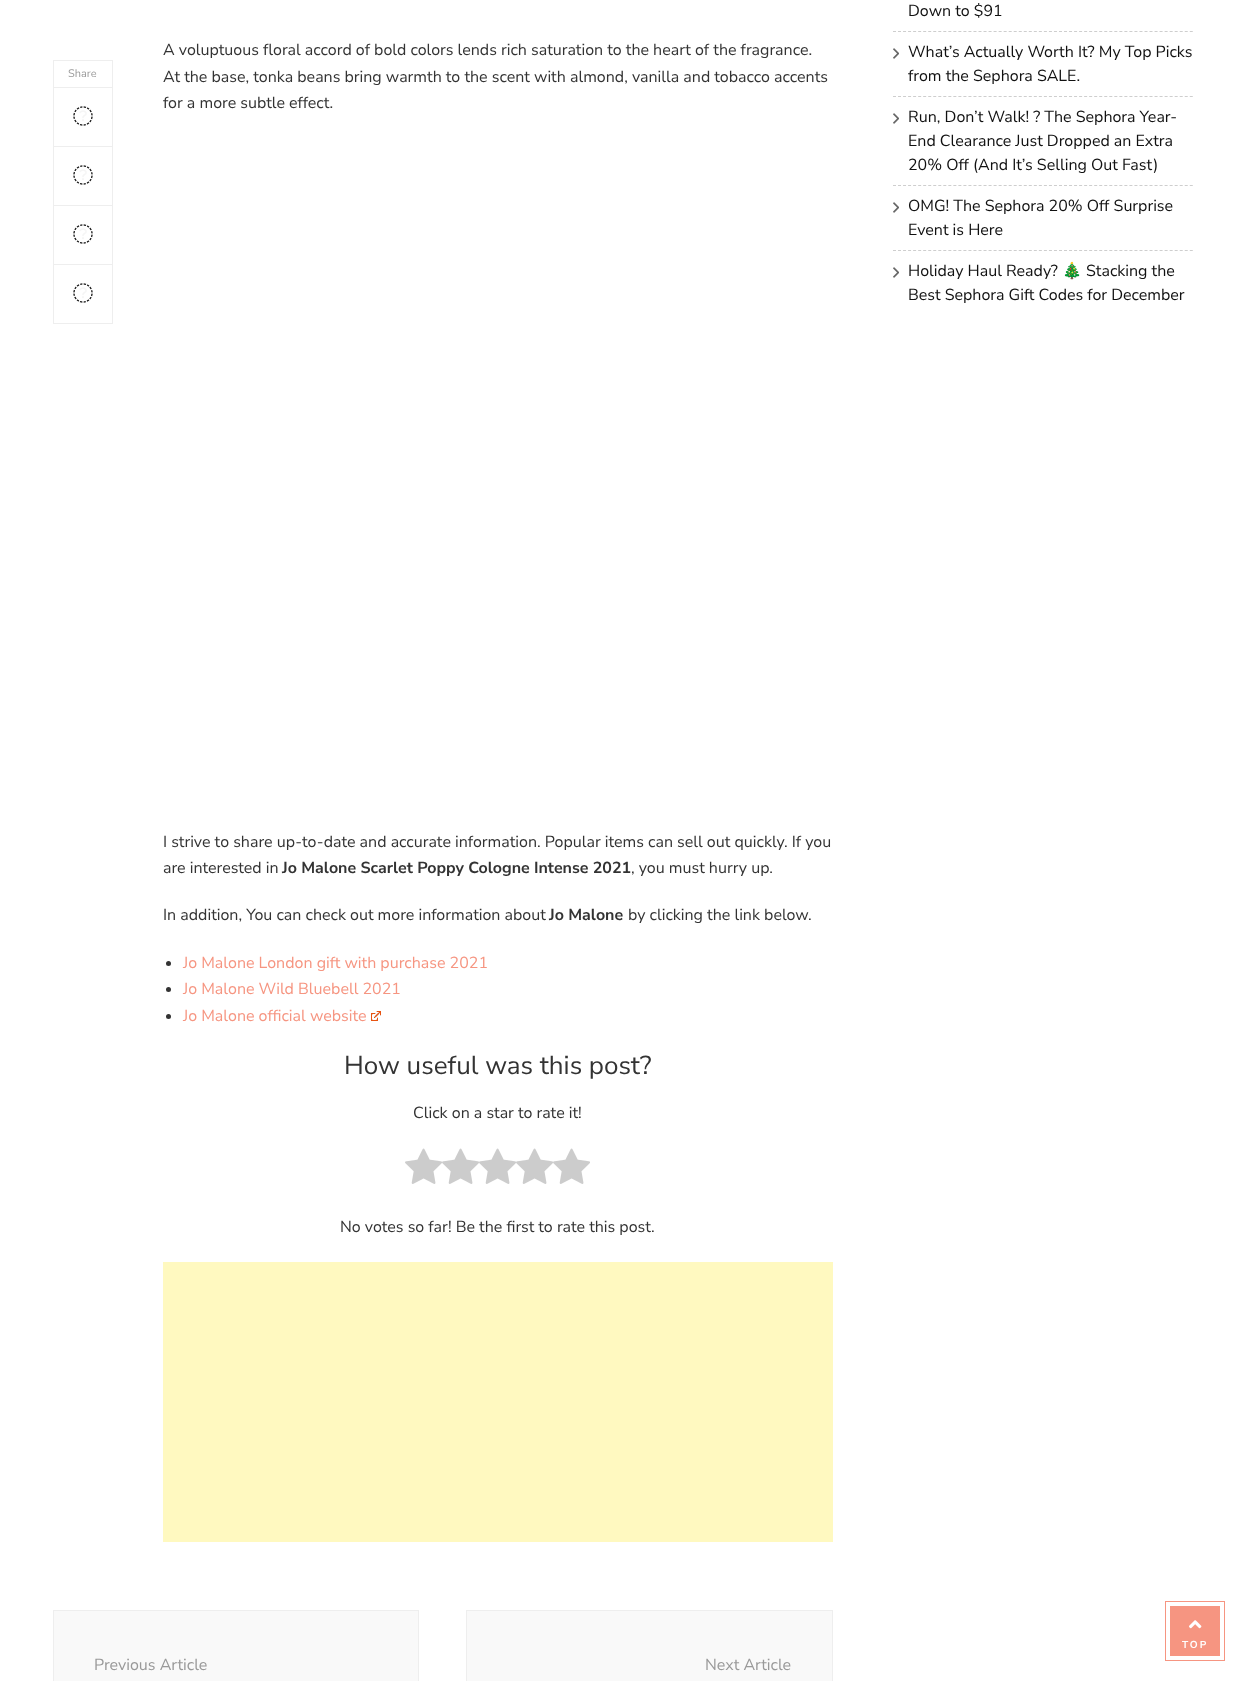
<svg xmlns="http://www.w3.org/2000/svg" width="1245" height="1681">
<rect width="100%" height="100%" fill="#fff"/>
<rect x="53.5" y="60.5" width="59" height="263" fill="none" stroke="#eee"/>
<text x="68" y="77" style="font-family:Nunito Sans;font-size:11px;fill:#999">Share</text>
<rect x="54" y="87" width="58" height="1" fill="#eee"/>
<image x="73" y="106" width="20" height="20" href="media/1.png"/>
<rect x="54" y="146" width="58" height="1" fill="#eee"/>
<image x="73" y="165" width="20" height="20" href="media/1.png"/>
<rect x="54" y="205" width="58" height="1" fill="#eee"/>
<image x="73" y="224" width="20" height="20" href="media/1.png"/>
<rect x="54" y="264" width="58" height="1" fill="#eee"/>
<image x="73" y="283" width="20" height="20" href="media/1.png"/>
<text x="163" y="55" style="font-family:Nunito Sans;font-size:16px;fill:#333">A voluptuous floral accord of bold colors lends rich saturation to the heart of the fragrance.</text>
<text x="163" y="82" style="font-family:Nunito Sans;font-size:16px;fill:#333">At the base, tonka beans bring warmth to the scent with almond, vanilla and tobacco accents</text>
<text x="163" y="108" style="font-family:Nunito Sans;font-size:16px;fill:#333">for a more subtle effect.</text>
<text x="163" y="847" style="font-family:Nunito Sans;font-size:16px;fill:#333">I strive to share up-to-date and accurate information. Popular items can sell out quickly. If you</text>
<text x="163" y="873" style="font-family:Nunito Sans;font-size:16px;fill:#333">are interested in</text>
<text x="282" y="873" style="font-family:Nunito Sans;font-size:16px;font-weight:bold;fill:#333">Jo Malone Scarlet Poppy Cologne Intense 2021</text>
<text x="631" y="873" style="font-family:Nunito Sans;font-size:16px;fill:#333">, you must hurry up.</text>
<text x="163" y="920" style="font-family:Nunito Sans;font-size:16px;fill:#333">In addition, You can check out more information about</text>
<text x="549" y="920" style="font-family:Nunito Sans;font-size:16px;font-weight:bold;fill:#333">Jo Malone</text>
<text x="628" y="920" style="font-family:Nunito Sans;font-size:16px;fill:#333">by clicking the link below.</text>
<circle cx="168.5" cy="963.5" r="2.5" fill="#333"/>
<text x="183" y="968" style="font-family:Nunito Sans;font-size:16px;fill:#f69581">Jo Malone London gift with purchase 2021</text>
<circle cx="168.5" cy="989.5" r="2.5" fill="#333"/>
<text x="183" y="994" style="font-family:Nunito Sans;font-size:16px;fill:#f69581">Jo Malone Wild Bluebell 2021</text>
<circle cx="168.5" cy="1016.5" r="2.5" fill="#333"/>
<text x="183" y="1021" style="font-family:Nunito Sans;font-size:16px;fill:#f69581">Jo Malone official website</text>
<image x="371" y="1011" width="10" height="10" href="media/2.png"/>
<text x="344" y="1074" style="font-family:Nunito Sans;font-size:26px;fill:#333">How useful was this post?</text>
<text x="413" y="1118" style="font-family:Nunito Sans;font-size:16px;fill:#333">Click on a star to rate it!</text>
<image x="405" y="1148" width="37" height="36" href="media/3.png"/>
<image x="442" y="1148" width="37" height="36" href="media/3.png"/>
<image x="479" y="1148" width="37" height="36" href="media/3.png"/>
<image x="516" y="1148" width="37" height="36" href="media/3.png"/>
<image x="553" y="1148" width="37" height="36" href="media/3.png"/>
<text x="340" y="1232" style="font-family:Nunito Sans;font-size:16px;fill:#333">No votes so far! Be the first to rate this post.</text>
<rect x="163" y="1262" width="670" height="280" fill="#fff9c0"/>
<rect x="53.5" y="1610.5" width="365" height="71" fill="#f9f9f9" stroke="#eee"/>
<text x="94" y="1670" style="font-family:Nunito Sans;font-size:16px;fill:#999">Previous Article</text>
<rect x="466.5" y="1610.5" width="366" height="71" fill="#f9f9f9" stroke="#eee"/>
<text x="705" y="1670" style="font-family:Nunito Sans;font-size:16px;fill:#999">Next Article</text>
<path d="M893 31.5h300" fill="none" stroke="#cecece" stroke-dasharray="3 2.03"/>
<text x="908" y="16" style="font-family:Nunito Sans;font-size:16px;fill:#111">Down to $91</text>
<path d="M893 96.5h300" fill="none" stroke="#cecece" stroke-dasharray="3 2.03"/>
<image x="893" y="48" width="6" height="11" href="media/4.png"/>
<text x="908" y="57" style="font-family:Nunito Sans;font-size:16px;fill:#111">What’s Actually Worth It? My Top Picks</text>
<text x="908" y="81" style="font-family:Nunito Sans;font-size:16px;fill:#111">from the Sephora SALE.</text>
<path d="M893 185.5h300" fill="none" stroke="#cecece" stroke-dasharray="3 2.03"/>
<image x="893" y="113" width="6" height="11" href="media/4.png"/>
<text x="908" y="122" style="font-family:Nunito Sans;font-size:16px;fill:#111">Run, Don’t Walk! ? The Sephora Year-</text>
<text x="908" y="146" style="font-family:Nunito Sans;font-size:16px;fill:#111">End Clearance Just Dropped an Extra</text>
<text x="908" y="170" style="font-family:Nunito Sans;font-size:16px;fill:#111">20% Off (And It’s Selling Out Fast)</text>
<path d="M893 250.5h300" fill="none" stroke="#cecece" stroke-dasharray="3 2.03"/>
<image x="893" y="202" width="6" height="11" href="media/4.png"/>
<text x="908" y="211" style="font-family:Nunito Sans;font-size:16px;fill:#111">OMG! The Sephora 20% Off Surprise</text>
<text x="908" y="235" style="font-family:Nunito Sans;font-size:16px;fill:#111">Event is Here</text>
<image x="893" y="267" width="6" height="11" href="media/4.png"/>
<text x="908" y="276" style="font-family:Nunito Sans;font-size:16px;fill:#111">Holiday Haul Ready?</text>
<text x="1062" y="276" style="font-family:Noto Color Emoji;font-size:16px;fill:#111">🎄</text>
<text x="1086" y="276" style="font-family:Nunito Sans;font-size:16px;fill:#111">Stacking the</text>
<text x="908" y="300" style="font-family:Nunito Sans;font-size:16px;fill:#111">Best Sephora Gift Codes for December</text>
<rect x="1165" y="1601" width="60" height="60" fill="#f69581"/>
<image x="1189" y="1620" width="13" height="9" href="media/5.png"/>
<rect x="1168" y="1604" width="54" height="54" fill="none" stroke="#fff" stroke-width="4"/>
<text x="1182" y="1648" style="font-family:Nunito Sans;font-size:10px;font-weight:bold;letter-spacing:2px;fill:#fff">TOP</text>
</svg>
